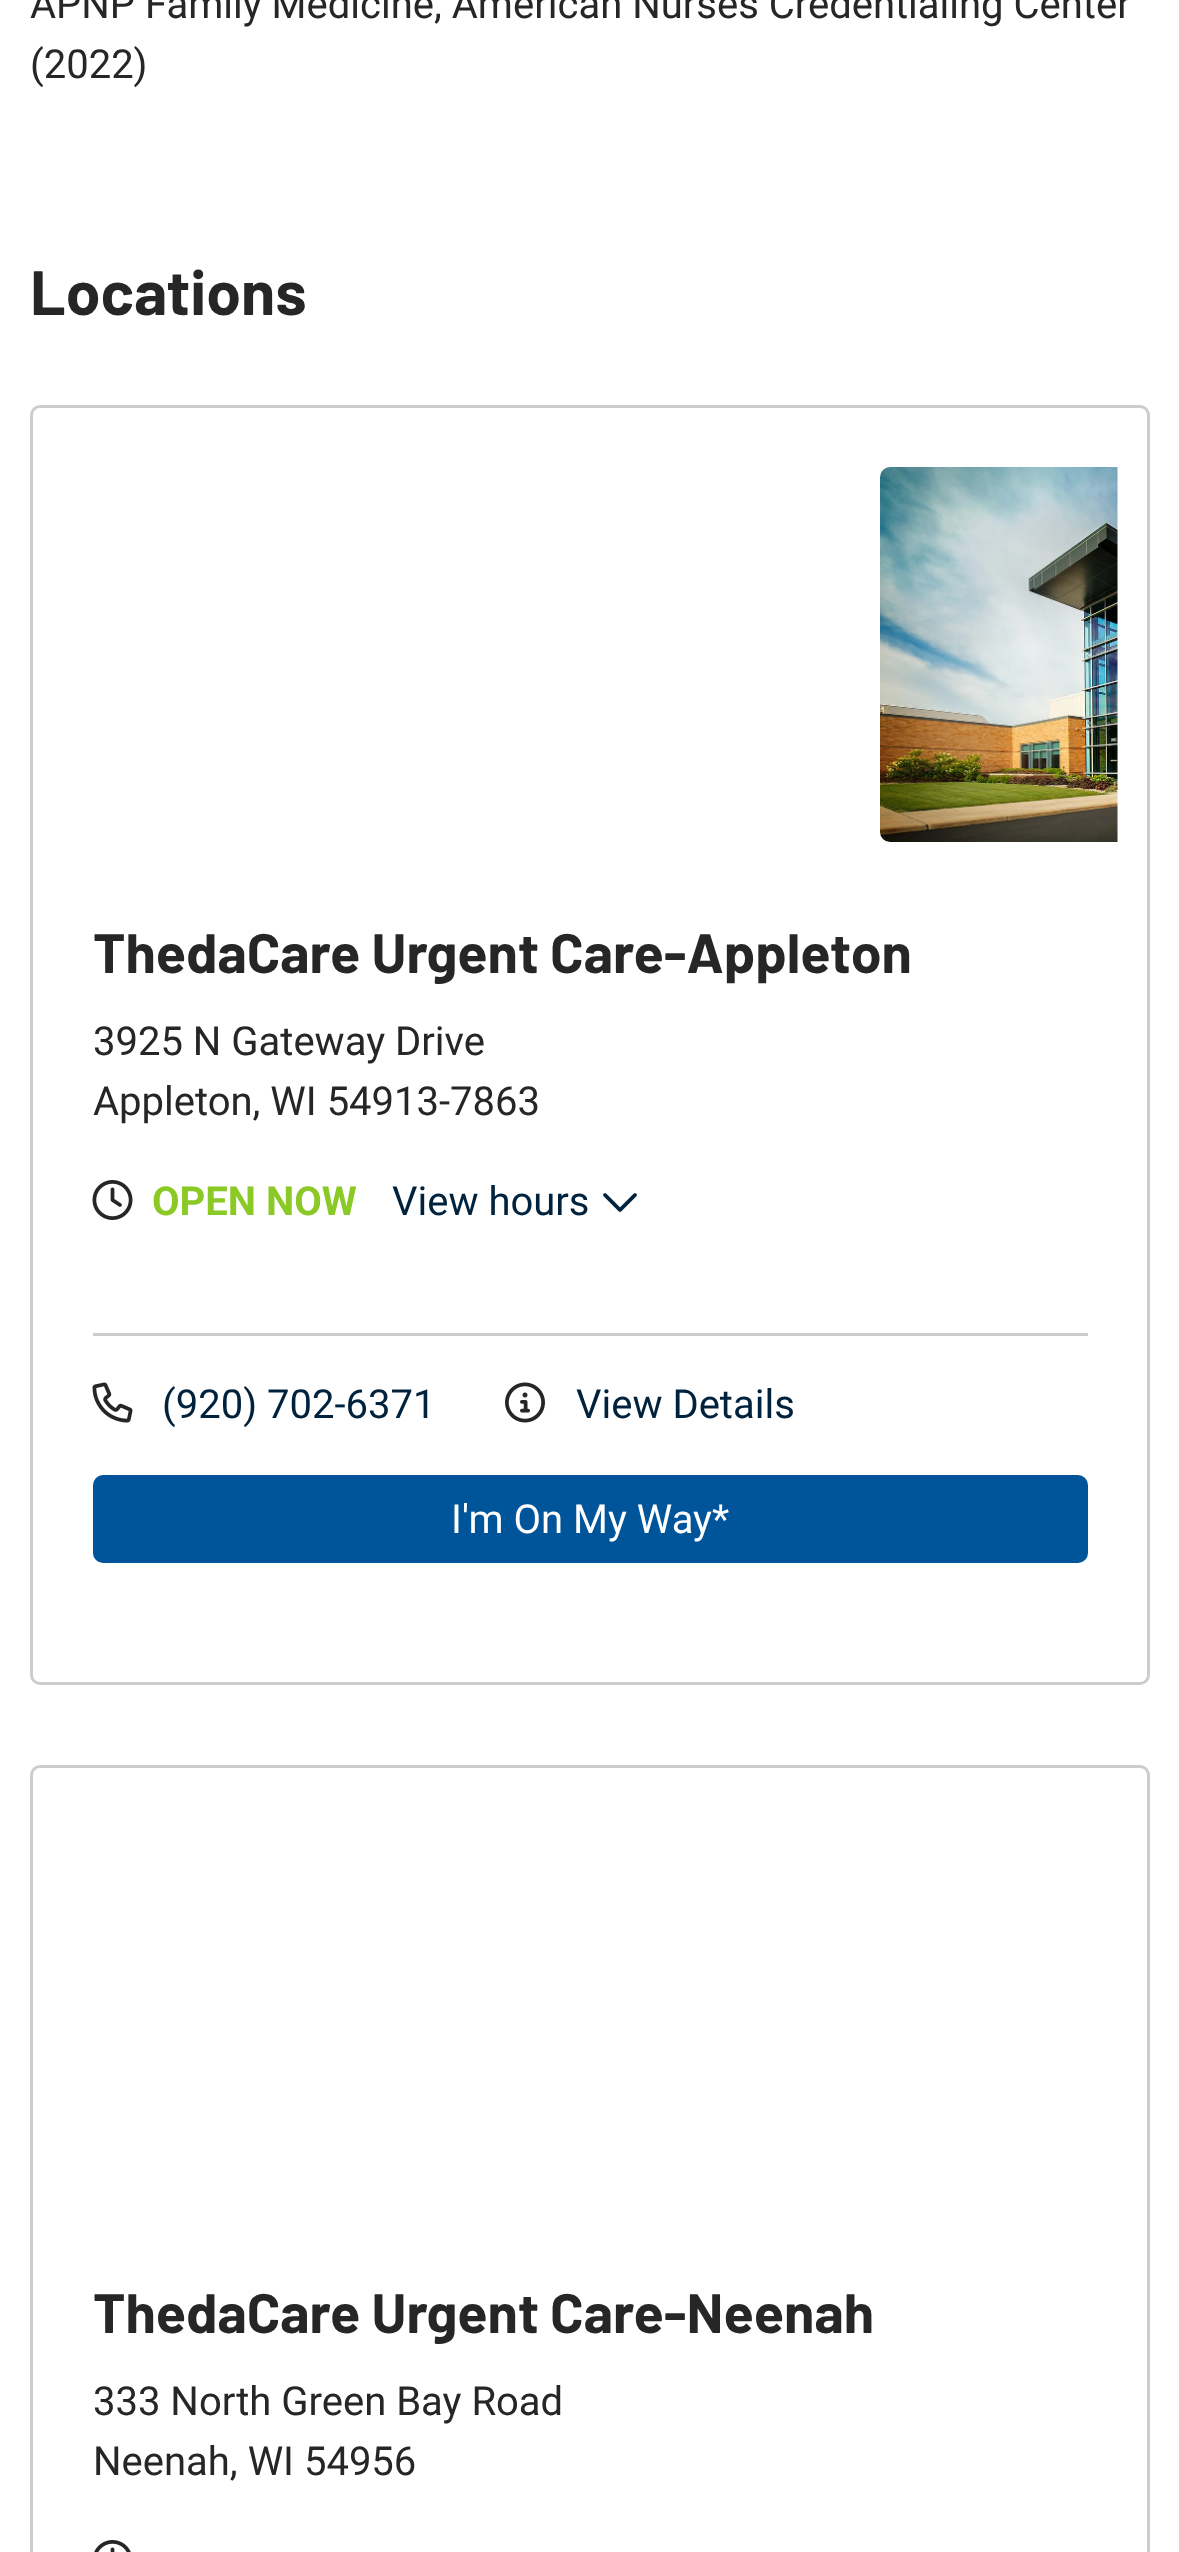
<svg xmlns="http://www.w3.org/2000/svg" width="1179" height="2552">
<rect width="100%" height="100%" fill="#fff"/>
<text x="30" y="18" style="font-family:Roboto;font-size:40px;fill:#262626">APNP Family Medicine, American Nurses Credentialing Center</text>
<text x="30" y="78" style="font-family:Roboto;font-size:40px;fill:#262626">(2022)</text>
<text x="30" y="315" style="font-family:Barlow;font-size:62.5px;font-weight:bold;fill:#262626">Locations</text>
<rect x="31.5" y="406.5" width="1117" height="1277" rx="8.5" fill="none" stroke="#cdcdcd" stroke-width="3"/>
<image x="880" y="467" width="238" height="375" href="media/1.png"/>
<text x="93" y="973" style="font-family:Barlow;font-size:55.5px;font-weight:bold;fill:#262626">ThedaCare Urgent Care-Appleton</text>
<text x="93" y="1055" style="font-family:Roboto;font-size:40px;fill:#262626">3925 N Gateway Drive</text>
<text x="93" y="1115" style="font-family:Roboto;font-size:40px;fill:#262626">Appleton, WI 54913-7863</text>
<image x="92" y="1180" width="41" height="40" href="media/2.png"/>
<text x="152" y="1215" style="font-family:Roboto;font-size:40px;font-weight:bold;fill:#8ac926">OPEN NOW</text>
<text x="392" y="1215" style="font-family:Roboto;font-size:40px;fill:#00223d">View hours</text>
<image x="603" y="1193" width="34" height="19" href="media/3.png"/>
<rect x="93" y="1333" width="995" height="3" fill="#cdcdcd"/>
<image x="92" y="1382" width="41" height="41" href="media/4.png"/>
<text x="162" y="1418" style="font-family:Roboto;font-size:40px;fill:#00223d">(920) 702-6371</text>
<image x="505" y="1382" width="40" height="41" href="media/5.png"/>
<text x="576" y="1418" style="font-family:Roboto;font-size:40px;fill:#00223d">View Details</text>
<rect x="93" y="1475" width="995" height="88" rx="10" fill="#00559a"/>
<text x="451" y="1533" style="font-family:Roboto;font-size:40px;fill:#fff">I'm On My Way*</text>
<rect x="31.5" y="1766.5" width="1117" height="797" rx="8.5" fill="none" stroke="#cdcdcd" stroke-width="3"/>
<text x="93" y="2333" style="font-family:Barlow;font-size:55.5px;font-weight:bold;fill:#262626">ThedaCare Urgent Care-Neenah</text>
<text x="93" y="2415" style="font-family:Roboto;font-size:40px;fill:#262626">333 North Green Bay Road</text>
<text x="93" y="2475" style="font-family:Roboto;font-size:40px;fill:#262626">Neenah, WI 54956</text>
<image x="94" y="2540" width="37" height="12" href="media/6.png"/>
</svg>
